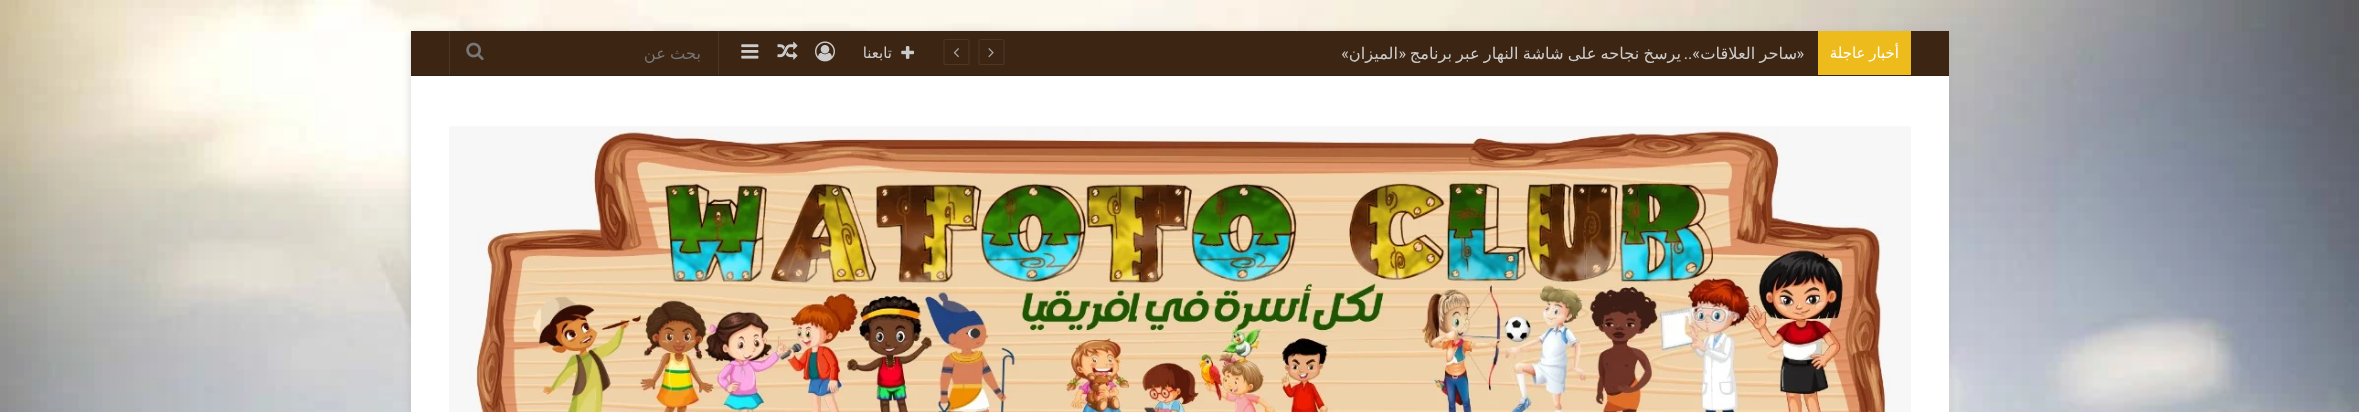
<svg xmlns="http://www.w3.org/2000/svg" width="2359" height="412">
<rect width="100%" height="100%" fill="#fff"/>
<image x="0" y="0" width="2359" height="412" href="media/1.png"/>
<rect x="411" y="33" width="1538" height="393" fill="#ababab80" filter="blur(4.5px)"/>
<rect x="411" y="76" width="1538" height="336" fill="#fff"/>
<rect x="411" y="31" width="1538" height="44" fill="#3c2512"/>
<rect x="411" y="75" width="1538" height="1" fill="#362110"/>
<rect x="1818" y="31" width="93" height="44" fill="#eebb1c"/>
<text x="1899" y="58" word-spacing="-1" style="font-family:DejaVu Sans;font-size:15px;direction:rtl;fill:#fff">أخبار عاجلة</text>
<text x="1804" y="59" style="font-family:Roboto;font-size:16.25px;direction:rtl;fill:#ccc">«</text>
<text x="1797" y="59" word-spacing="-1" style="font-family:DejaVu Sans;font-size:16.25px;direction:rtl;fill:#ccc">ساحر العلاقات</text>
<text x="1700" y="59" style="font-family:Roboto;font-size:16.25px;direction:rtl;fill:#ccc">»..</text>
<text x="1681" y="59" word-spacing="-1" style="font-family:DejaVu Sans;font-size:16.25px;direction:rtl;fill:#ccc">يرسخ نجاحه على شاشة النهار عبر برنامج</text>
<text x="1406" y="59" style="font-family:Roboto;font-size:16.25px;direction:rtl;fill:#ccc">«</text>
<text x="1398" y="59" style="font-family:DejaVu Sans;font-size:16.25px;direction:rtl;fill:#ccc">الميزان</text>
<text x="1349" y="59" style="font-family:Roboto;font-size:16.25px;direction:rtl;fill:#ccc">»</text>
<path d="M1002 64.5h-21c-1 0-2-1-2-2v-21.5c0-1 1-1.5 2-1.5h21c1 0 2 .5 2 1.5v21.5c0 1-1 2-2 2z" fill="none" stroke="#4c3625" stroke-width="1.2"/>
<image x="988" y="48" width="6" height="10" href="media/2.png"/>
<path d="M967 64.5h-21c-1 0-2-1-2-2v-21.5c0-1 1-1.5 2-1.5h21c1 0 2 .5 2 1.5v21.5c0 1-1 2-2 2z" fill="none" stroke="#4c3625" stroke-width="1.2"/>
<image x="953" y="48" width="6" height="10" href="media/3.png"/>
<image x="901" y="46" width="14" height="13" href="media/4.png"/>
<text x="892" y="58" style="font-family:DejaVu Sans;font-size:15px;direction:rtl;fill:#ccc">تابعنا</text>
<image x="815" y="41" width="20" height="21" href="media/5.png"/>
<image x="777" y="41" width="21" height="19" href="media/6.png"/>
<image x="741" y="44" width="18" height="15" href="media/7.png"/>
<rect x="718" y="31" width="1" height="44" fill="#4c3625"/>
<rect x="449" y="31" width="1" height="44" fill="#4c3625"/>
<text x="701" y="59" word-spacing="-1" style="font-family:DejaVu Sans;font-size:16.25px;direction:rtl;fill:#757575">بحث عن</text>
<image x="466" y="42" width="18" height="18" href="media/8.png"/>
<image x="449" y="126" width="1462" height="286" href="media/9.png"/>
</svg>
